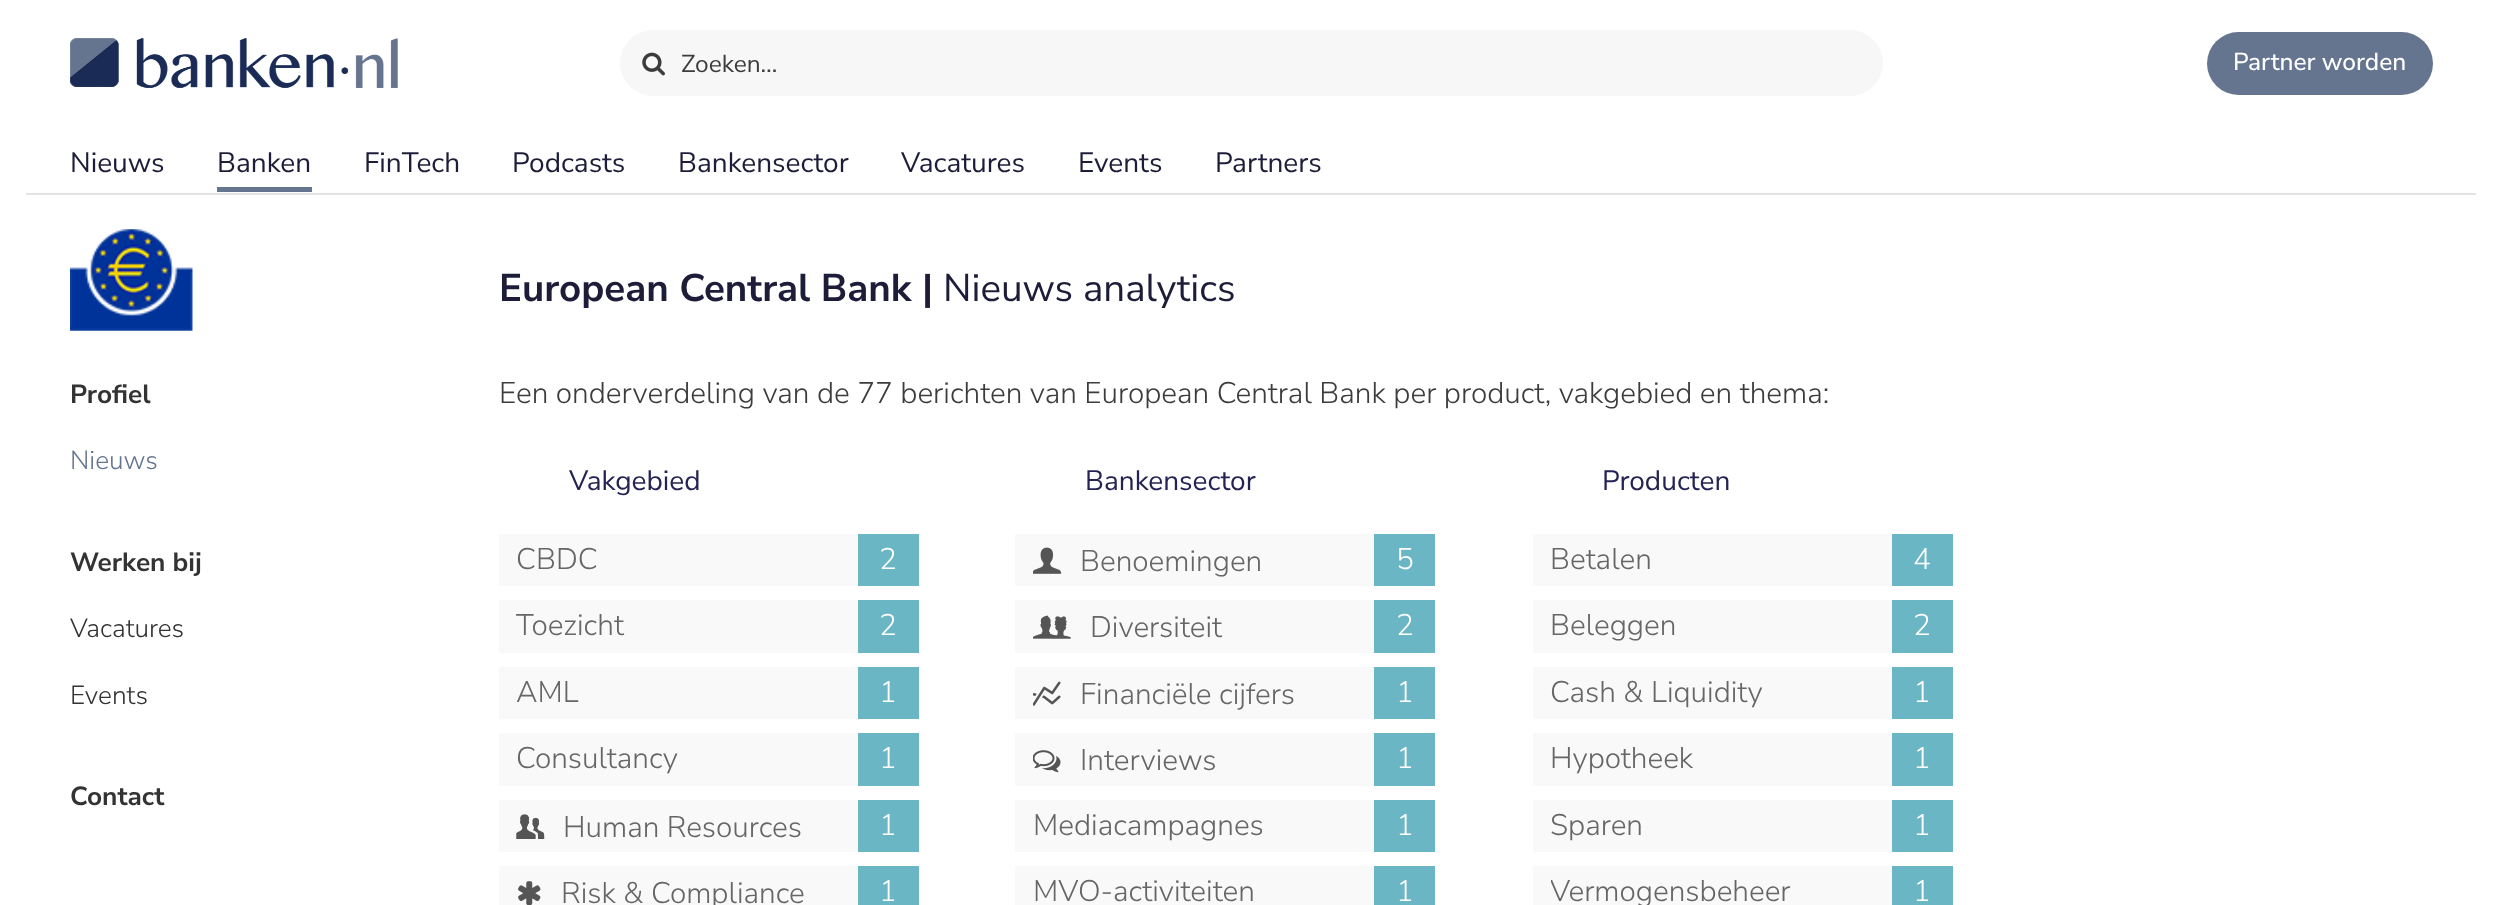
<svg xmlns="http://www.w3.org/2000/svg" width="2501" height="905">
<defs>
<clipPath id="clip1"><rect x="1551" y="866" width="402" height="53"/></clipPath>
</defs>
<rect width="100%" height="100%" fill="#fff"/>
<image x="70" y="38" width="328" height="50" href="media/1.png"/>
<rect x="620" y="30" width="1263" height="66" rx="33" fill="#f7f7f7"/>
<image x="642" y="52" width="23" height="24" href="media/2.png"/>
<text x="681" y="72" style="font-family:'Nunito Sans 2';font-size:24.5px;font-weight:200;fill:#3c3c3c">Zoeken…</text>
<rect x="2207" y="32" width="226" height="63" rx="31.5" fill="#65758f"/>
<text x="2233" y="70" style="font-family:'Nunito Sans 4';font-size:24.5px;font-weight:200;fill:#fff">Partner worden</text>
<text x="70" y="172" style="font-family:'Nunito Sans 2';font-size:28px;font-weight:200;fill:#1d1d39">Nieuws</text>
<rect x="217" y="187" width="95" height="5" fill="#65758f"/>
<text x="217" y="172" style="font-family:'Nunito Sans 2';font-size:28px;font-weight:200;fill:#1d1d39">Banken</text>
<text x="364" y="172" style="font-family:'Nunito Sans 2';font-size:28px;font-weight:200;fill:#1d1d39">FinTech</text>
<text x="512" y="172" style="font-family:'Nunito Sans 2';font-size:28px;font-weight:200;fill:#1d1d39">Podcasts</text>
<text x="678" y="172" style="font-family:'Nunito Sans 2';font-size:28px;font-weight:200;fill:#1d1d39">Bankensector</text>
<text x="901" y="172" style="font-family:'Nunito Sans 2';font-size:28px;font-weight:200;fill:#1d1d39">Vacatures</text>
<text x="1078" y="172" style="font-family:'Nunito Sans 2';font-size:28px;font-weight:200;fill:#1d1d39">Events</text>
<text x="1215" y="172" style="font-family:'Nunito Sans 2';font-size:28px;font-weight:200;fill:#1d1d39">Partners</text>
<rect x="26" y="193" width="2450" height="2" fill="#e2e4e6"/>
<image x="70" y="229" width="123" height="102" href="media/3.png"/>
<text x="70" y="403" style="font-family:Nunito Sans;font-size:26.25px;font-weight:200;fill:#333">Profiel</text>
<text x="70" y="469" style="font-family:'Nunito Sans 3';font-size:26.25px;font-weight:200;fill:#65758f">Nieuws</text>
<text x="70" y="571" style="font-family:Nunito Sans;font-size:26.25px;font-weight:200;fill:#333">Werken bij</text>
<text x="70" y="637" style="font-family:'Nunito Sans 3';font-size:26.25px;font-weight:200;fill:#333">Vacatures</text>
<text x="70" y="704" style="font-family:'Nunito Sans 3';font-size:26.25px;font-weight:200;fill:#333">Events</text>
<text x="70" y="805" style="font-family:Nunito Sans;font-size:26.25px;font-weight:200;fill:#333">Contact</text>
<text x="499" y="301" style="font-family:Nunito Sans;font-size:38.5px;font-weight:200;fill:#1d1d39">European Central Bank |</text>
<text x="943" y="301" style="font-family:'Nunito Sans 2';font-size:38.5px;font-weight:200;fill:#1d1d39">Nieuws analytics</text>
<text x="499" y="403" style="font-family:'Nunito Sans 3';font-size:29.75px;font-weight:200;fill:#3c3c3c">Een onderverdeling van de 77 berichten van European Central Bank per product, vakgebied en thema:</text>
<text x="569" y="490" style="font-family:'Nunito Sans 2';font-size:28px;font-weight:200;fill:#252354">Vakgebied</text>
<rect x="499" y="534" width="359" height="52" fill="#f9f9f9"/>
<text x="516" y="569" style="font-family:'Nunito Sans 3';font-size:29.75px;font-weight:200;fill:#666">CBDC</text>
<rect x="858" y="534" width="61" height="52" fill="#6ab6c4"/>
<text x="879" y="569" style="font-family:'Nunito Sans 3';font-size:29.75px;font-weight:200;fill:#fff">2</text>
<rect x="499" y="600" width="359" height="53" fill="#f9f9f9"/>
<text x="516" y="635" style="font-family:'Nunito Sans 3';font-size:29.75px;font-weight:200;fill:#666">Toezicht</text>
<rect x="858" y="600" width="61" height="53" fill="#6ab6c4"/>
<text x="879" y="635" style="font-family:'Nunito Sans 3';font-size:29.75px;font-weight:200;fill:#fff">2</text>
<rect x="499" y="667" width="359" height="52" fill="#f9f9f9"/>
<text x="516" y="702" style="font-family:'Nunito Sans 3';font-size:29.75px;font-weight:200;fill:#666">AML</text>
<rect x="858" y="667" width="61" height="52" fill="#6ab6c4"/>
<text x="879" y="702" style="font-family:'Nunito Sans 3';font-size:29.75px;font-weight:200;fill:#fff">1</text>
<rect x="499" y="733" width="359" height="53" fill="#f9f9f9"/>
<text x="516" y="768" style="font-family:'Nunito Sans 3';font-size:29.75px;font-weight:200;fill:#666">Consultancy</text>
<rect x="858" y="733" width="61" height="53" fill="#6ab6c4"/>
<text x="879" y="768" style="font-family:'Nunito Sans 3';font-size:29.75px;font-weight:200;fill:#fff">1</text>
<rect x="499" y="800" width="359" height="52" fill="#f9f9f9"/>
<image x="516" y="814" width="29" height="25" href="media/4.png"/>
<text x="563" y="837" style="font-family:'Nunito Sans 3';font-size:29.75px;font-weight:200;fill:#666">Human Resources</text>
<rect x="858" y="800" width="61" height="52" fill="#6ab6c4"/>
<text x="879" y="835" style="font-family:'Nunito Sans 3';font-size:29.75px;font-weight:200;fill:#fff">1</text>
<rect x="499" y="866" width="359" height="39" fill="#f9f9f9"/>
<image x="518" y="881" width="23" height="24" href="media/5.png"/>
<text x="561" y="903" style="font-family:'Nunito Sans 3';font-size:29.75px;font-weight:200;fill:#666">Risk &amp; Compliance</text>
<rect x="858" y="866" width="61" height="39" fill="#6ab6c4"/>
<text x="879" y="901" style="font-family:'Nunito Sans 3';font-size:29.75px;font-weight:200;fill:#fff">1</text>
<text x="1085" y="490" style="font-family:'Nunito Sans 2';font-size:28px;font-weight:200;fill:#252354">Bankensector</text>
<rect x="1015" y="534" width="359" height="52" fill="#f9f9f9"/>
<image x="1033" y="547" width="29" height="27" href="media/6.png"/>
<text x="1080" y="571" style="font-family:'Nunito Sans 3';font-size:29.75px;font-weight:200;fill:#666">Benoemingen</text>
<rect x="1374" y="534" width="61" height="52" fill="#6ab6c4"/>
<text x="1396" y="569" style="font-family:'Nunito Sans 3';font-size:29.75px;font-weight:200;fill:#fff">5</text>
<rect x="1015" y="600" width="359" height="53" fill="#f9f9f9"/>
<image x="1033" y="615" width="38" height="24" href="media/7.png"/>
<text x="1090" y="637" style="font-family:'Nunito Sans 3';font-size:29.75px;font-weight:200;fill:#666">Diversiteit</text>
<rect x="1374" y="600" width="61" height="53" fill="#6ab6c4"/>
<text x="1396" y="635" style="font-family:'Nunito Sans 3';font-size:29.75px;font-weight:200;fill:#fff">2</text>
<rect x="1015" y="667" width="359" height="52" fill="#f9f9f9"/>
<image x="1033" y="681" width="28" height="25" href="media/8.png"/>
<text x="1080" y="704" style="font-family:'Nunito Sans 3';font-size:29.75px;font-weight:200;fill:#666">Financiële cijfers</text>
<rect x="1374" y="667" width="61" height="52" fill="#6ab6c4"/>
<text x="1396" y="702" style="font-family:'Nunito Sans 3';font-size:29.75px;font-weight:200;fill:#fff">1</text>
<rect x="1015" y="733" width="359" height="53" fill="#f9f9f9"/>
<image x="1033" y="750" width="28" height="23" href="media/9.png"/>
<text x="1080" y="770" style="font-family:'Nunito Sans 3';font-size:29.75px;font-weight:200;fill:#666">Interviews</text>
<rect x="1374" y="733" width="61" height="53" fill="#6ab6c4"/>
<text x="1396" y="768" style="font-family:'Nunito Sans 3';font-size:29.75px;font-weight:200;fill:#fff">1</text>
<rect x="1015" y="800" width="359" height="52" fill="#f9f9f9"/>
<text x="1033" y="835" style="font-family:'Nunito Sans 3';font-size:29.75px;font-weight:200;fill:#666">Mediacampagnes</text>
<rect x="1374" y="800" width="61" height="52" fill="#6ab6c4"/>
<text x="1396" y="835" style="font-family:'Nunito Sans 3';font-size:29.75px;font-weight:200;fill:#fff">1</text>
<rect x="1015" y="866" width="359" height="39" fill="#f9f9f9"/>
<text x="1033" y="901" style="font-family:'Nunito Sans 3';font-size:29.75px;font-weight:200;fill:#666">MVO-activiteiten</text>
<rect x="1374" y="866" width="61" height="39" fill="#6ab6c4"/>
<text x="1396" y="901" style="font-family:'Nunito Sans 3';font-size:29.75px;font-weight:200;fill:#fff">1</text>
<text x="1602" y="490" style="font-family:'Nunito Sans 2';font-size:28px;font-weight:200;fill:#252354">Producten</text>
<rect x="1533" y="534" width="359" height="52" fill="#f9f9f9"/>
<text x="1550" y="569" style="font-family:'Nunito Sans 3';font-size:29.75px;font-weight:200;fill:#666">Betalen</text>
<rect x="1892" y="534" width="61" height="52" fill="#6ab6c4"/>
<text x="1913" y="569" style="font-family:'Nunito Sans 3';font-size:29.75px;font-weight:200;fill:#fff">4</text>
<rect x="1533" y="600" width="359" height="53" fill="#f9f9f9"/>
<text x="1550" y="635" style="font-family:'Nunito Sans 3';font-size:29.75px;font-weight:200;fill:#666">Beleggen</text>
<rect x="1892" y="600" width="61" height="53" fill="#6ab6c4"/>
<text x="1913" y="635" style="font-family:'Nunito Sans 3';font-size:29.75px;font-weight:200;fill:#fff">2</text>
<rect x="1533" y="667" width="359" height="52" fill="#f9f9f9"/>
<text x="1550" y="702" style="font-family:'Nunito Sans 3';font-size:29.75px;font-weight:200;fill:#666">Cash &amp; Liquidity</text>
<rect x="1892" y="667" width="61" height="52" fill="#6ab6c4"/>
<text x="1913" y="702" style="font-family:'Nunito Sans 3';font-size:29.75px;font-weight:200;fill:#fff">1</text>
<rect x="1533" y="733" width="359" height="53" fill="#f9f9f9"/>
<text x="1550" y="768" style="font-family:'Nunito Sans 3';font-size:29.75px;font-weight:200;fill:#666">Hypotheek</text>
<rect x="1892" y="733" width="61" height="53" fill="#6ab6c4"/>
<text x="1913" y="768" style="font-family:'Nunito Sans 3';font-size:29.75px;font-weight:200;fill:#fff">1</text>
<rect x="1533" y="800" width="359" height="52" fill="#f9f9f9"/>
<text x="1550" y="835" style="font-family:'Nunito Sans 3';font-size:29.75px;font-weight:200;fill:#666">Sparen</text>
<rect x="1892" y="800" width="61" height="52" fill="#6ab6c4"/>
<text x="1913" y="835" style="font-family:'Nunito Sans 3';font-size:29.75px;font-weight:200;fill:#fff">1</text>
<rect x="1533" y="866" width="359" height="39" fill="#f9f9f9"/>
<g clip-path="url(#clip1)">
<text x="1550" y="901" style="font-family:'Nunito Sans 3';font-size:29.75px;font-weight:200;fill:#666">Vermogensbeheer</text>
</g>
<rect x="1892" y="866" width="61" height="39" fill="#6ab6c4"/>
<text x="1913" y="901" style="font-family:'Nunito Sans 3';font-size:29.75px;font-weight:200;fill:#fff">1</text>
</svg>
